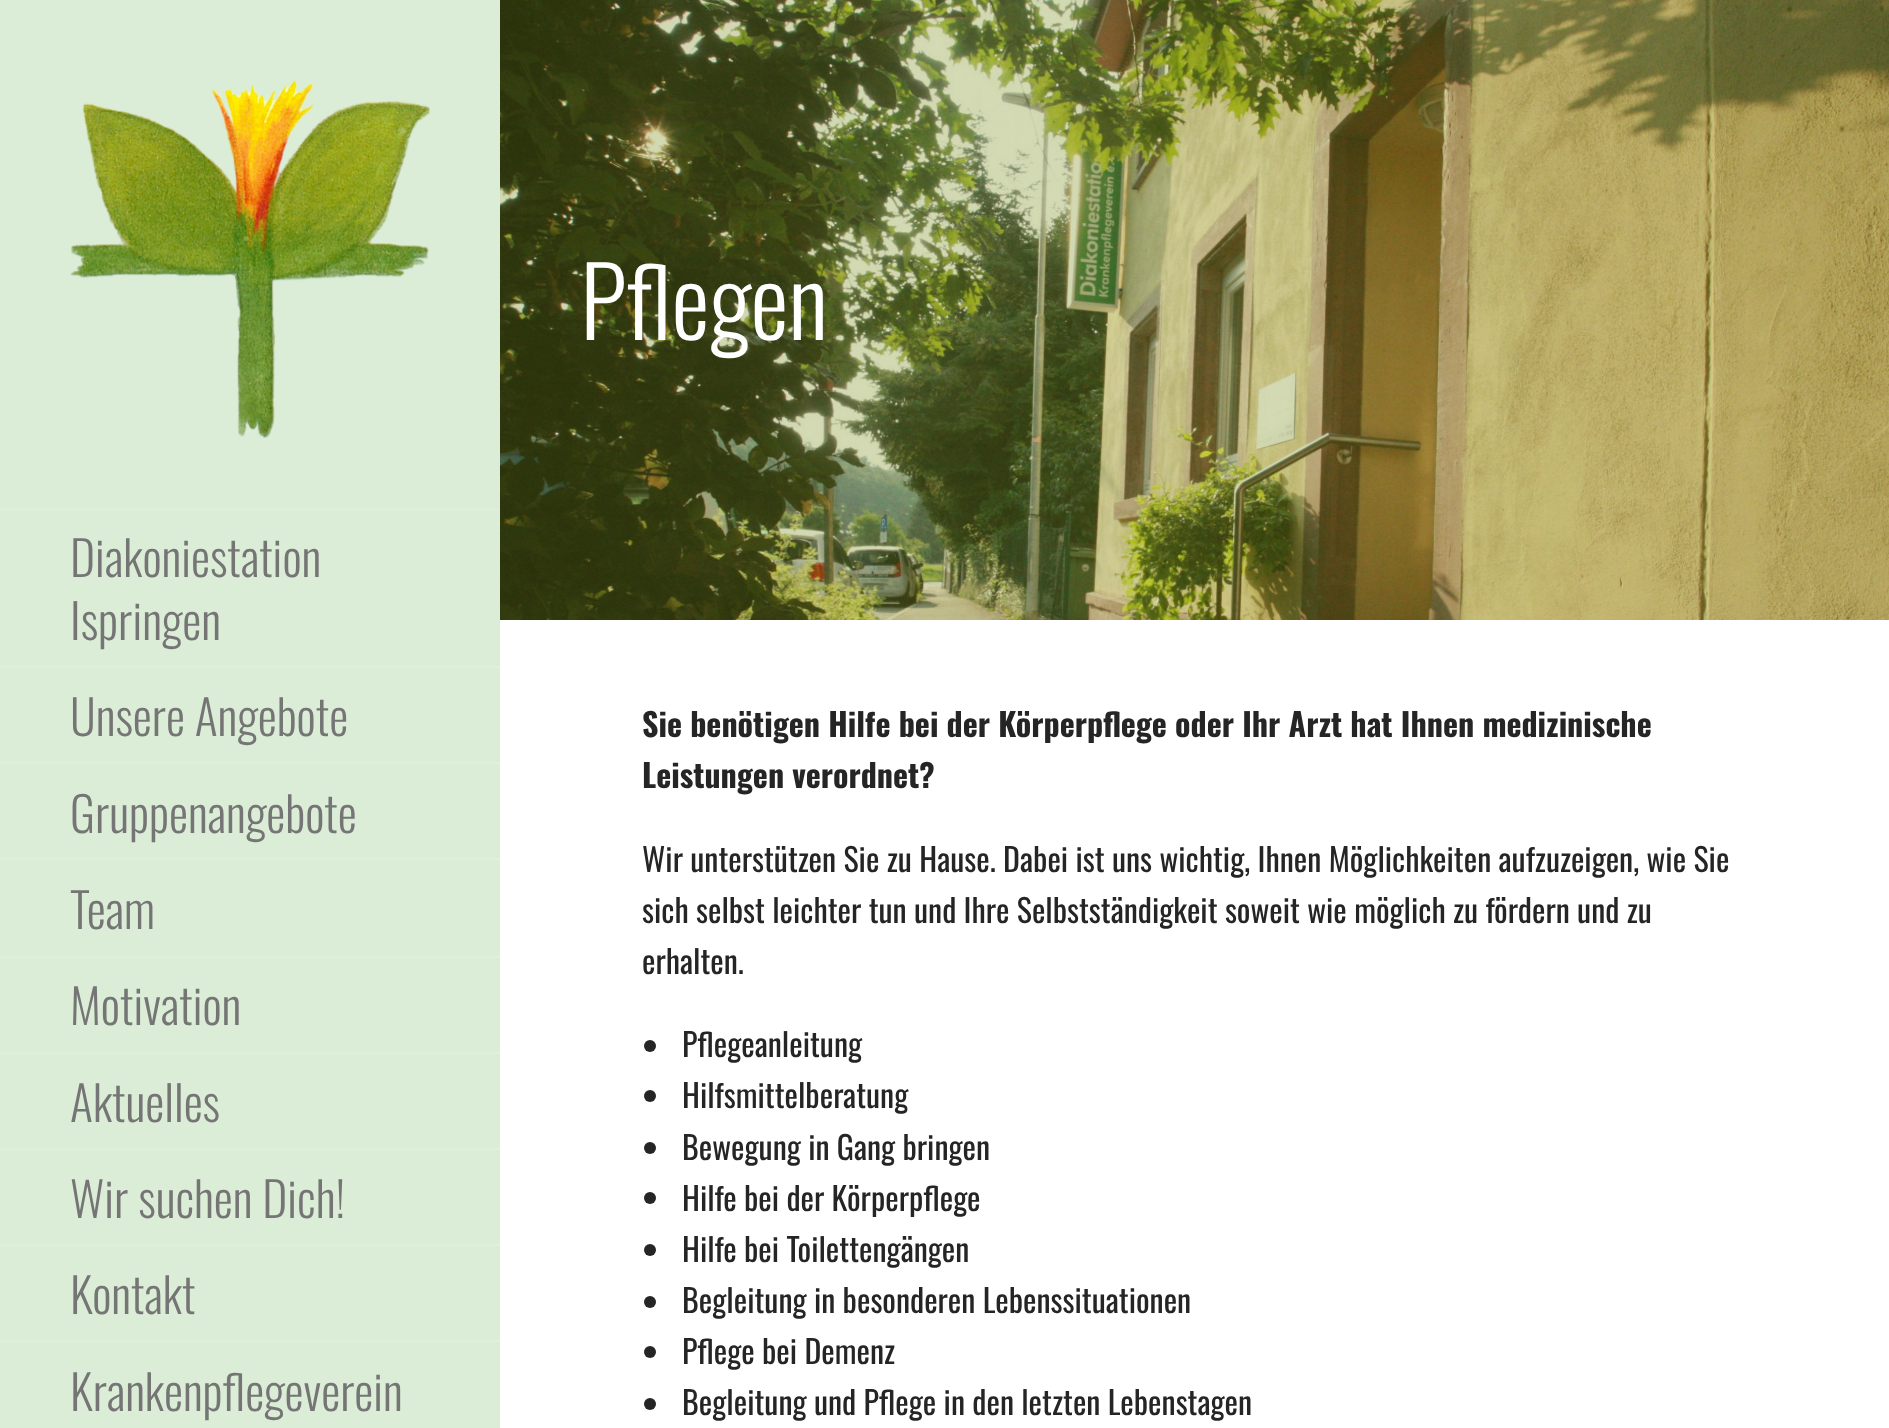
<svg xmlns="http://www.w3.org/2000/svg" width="1889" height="1428">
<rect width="100%" height="100%" fill="#fff"/>
<image x="500" y="0" width="1389" height="620" href="media/1.png"/>
<text x="580" y="340" style="font-family:Oswald;font-size:96px;font-weight:300;fill:#fff">Pflegen</text>
<rect width="500" height="1428" fill="#dbedd7"/>
<image x="70" y="80" width="360" height="358" href="media/2.png"/>
<rect y="508" width="500" height="2" fill="#dfefdb"/>
<rect y="666" width="500" height="2" fill="#dfefdb"/>
<text x="70" y="577" style="font-family:Oswald;font-size:48px;font-weight:300;fill:#757575">Diakoniestation</text>
<text x="70" y="640" style="font-family:Oswald;font-size:48px;font-weight:300;fill:#757575">Ispringen</text>
<rect y="762" width="500" height="2" fill="#dfefdb"/>
<text x="70" y="736" style="font-family:Oswald;font-size:48px;font-weight:300;fill:#757575">Unsere Angebote</text>
<rect y="858" width="500" height="2" fill="#dfefdb"/>
<text x="70" y="833" style="font-family:Oswald;font-size:48px;font-weight:300;fill:#757575">Gruppenangebote</text>
<rect y="956" width="500" height="2" fill="#dfefdb"/>
<text x="70" y="929" style="font-family:Oswald;font-size:48px;font-weight:300;fill:#757575">Team</text>
<rect y="1052" width="500" height="2" fill="#dfefdb"/>
<text x="70" y="1025" style="font-family:Oswald;font-size:48px;font-weight:300;fill:#757575">Motivation</text>
<rect y="1148" width="500" height="2" fill="#dfefdb"/>
<text x="70" y="1122" style="font-family:Oswald;font-size:48px;font-weight:300;fill:#757575">Aktuelles</text>
<rect y="1244" width="500" height="2" fill="#dfefdb"/>
<text x="70" y="1218" style="font-family:Oswald;font-size:48px;font-weight:300;fill:#757575">Wir suchen Dich!</text>
<rect y="1340" width="500" height="2" fill="#dfefdb"/>
<text x="70" y="1314" style="font-family:Oswald;font-size:48px;font-weight:300;fill:#757575">Kontakt</text>
<text x="70" y="1411" style="font-family:Oswald;font-size:48px;font-weight:300;fill:#757575">Krankenpflegeverein</text>
<text x="642" y="737" style="font-family:Oswald;font-size:32px;font-weight:bold;fill:#252525">Sie benötigen Hilfe bei der Körperpflege oder Ihr Arzt hat Ihnen medizinische</text>
<text x="642" y="788" style="font-family:Oswald;font-size:32px;font-weight:bold;fill:#252525">Leistungen verordnet?</text>
<text x="642" y="872" style="font-family:Oswald;font-size:32px;fill:#252525">Wir unterstützen Sie zu Hause. Dabei ist uns wichtig, Ihnen Möglichkeiten aufzuzeigen, wie Sie</text>
<text x="642" y="923" style="font-family:Oswald;font-size:32px;fill:#252525">sich selbst leichter tun und Ihre Selbstständigkeit soweit wie möglich zu fördern und zu</text>
<text x="642" y="974" style="font-family:Oswald;font-size:32px;fill:#252525">erhalten.</text>
<circle cx="650" cy="1046" r="6" fill="#252525"/>
<text x="682" y="1057" style="font-family:Oswald;font-size:32px;fill:#252525">Pflegeanleitung</text>
<circle cx="650" cy="1096" r="6" fill="#252525"/>
<text x="682" y="1108" style="font-family:Oswald;font-size:32px;fill:#252525">Hilfsmittelberatung</text>
<circle cx="650" cy="1148" r="6" fill="#252525"/>
<text x="682" y="1160" style="font-family:Oswald;font-size:32px;fill:#252525">Bewegung in Gang bringen</text>
<circle cx="650" cy="1198" r="6" fill="#252525"/>
<text x="682" y="1211" style="font-family:Oswald;font-size:32px;fill:#252525">Hilfe bei der Körperpflege</text>
<circle cx="650" cy="1250" r="6" fill="#252525"/>
<text x="682" y="1262" style="font-family:Oswald;font-size:32px;fill:#252525">Hilfe bei Toilettengängen</text>
<circle cx="650" cy="1302" r="6" fill="#252525"/>
<text x="682" y="1313" style="font-family:Oswald;font-size:32px;fill:#252525">Begleitung in besonderen Lebenssituationen</text>
<circle cx="650" cy="1352" r="6" fill="#252525"/>
<text x="682" y="1364" style="font-family:Oswald;font-size:32px;fill:#252525">Pflege bei Demenz</text>
<circle cx="650" cy="1404" r="6" fill="#252525"/>
<text x="682" y="1415" style="font-family:Oswald;font-size:32px;fill:#252525">Begleitung und Pflege in den letzten Lebenstagen</text>
</svg>
